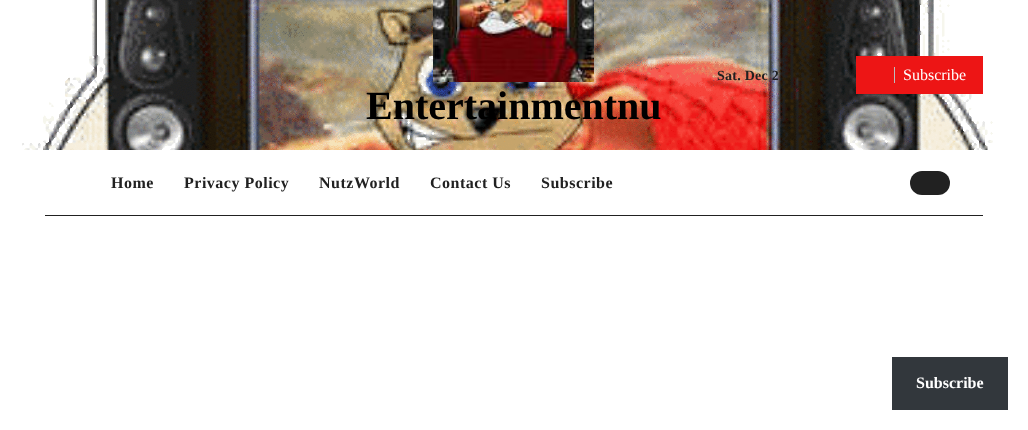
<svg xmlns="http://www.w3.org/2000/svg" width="1028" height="430">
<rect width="100%" height="100%" fill="#fff"/>
<image x="22" y="0" width="971" height="150" href="media/1.png"/>
<text x="717" y="80" style="font-family:Liberation Serif;font-size:14px;font-weight:bold;letter-spacing:0.25px;fill:#212121">Sat. Dec 2</text>
<rect x="856" y="56" width="127" height="38" fill="#ed1515"/>
<rect x="894" y="67" width="1" height="16" fill="#bdbdbd"/>
<text x="903" y="80" style="font-family:Liberation Serif;font-size:16px;fill:#fff">Subscribe</text>
<image x="433" y="0" width="161" height="82" href="media/2.png"/>
<text x="366" y="119" style="font-family:Liberation Serif;font-size:40px;font-weight:bold;fill:#000">Entertainmentnu</text>
<rect x="45" y="215" width="938" height="1" fill="#212121"/>
<text x="111" y="188" style="font-family:Liberation Serif;font-size:16px;font-weight:bold;letter-spacing:0.5px;fill:#212121">Home</text>
<text x="184" y="188" style="font-family:Liberation Serif;font-size:16px;font-weight:bold;letter-spacing:0.5px;fill:#212121">Privacy Policy</text>
<text x="319" y="188" style="font-family:Liberation Serif;font-size:16px;font-weight:bold;letter-spacing:0.5px;fill:#212121">NutzWorld</text>
<text x="430" y="188" style="font-family:Liberation Serif;font-size:16px;font-weight:bold;letter-spacing:0.5px;fill:#212121">Contact Us</text>
<text x="541" y="188" style="font-family:Liberation Serif;font-size:16px;font-weight:bold;letter-spacing:0.5px;fill:#212121">Subscribe</text>
<rect x="910" y="171" width="40" height="24" rx="12" fill="#212121"/>
<rect x="892" y="357" width="116" height="53" fill="#32373c"/>
<text x="916" y="388" style="font-family:Liberation Serif;font-size:16px;font-weight:bold;fill:#fff">Subscribe</text>
</svg>
